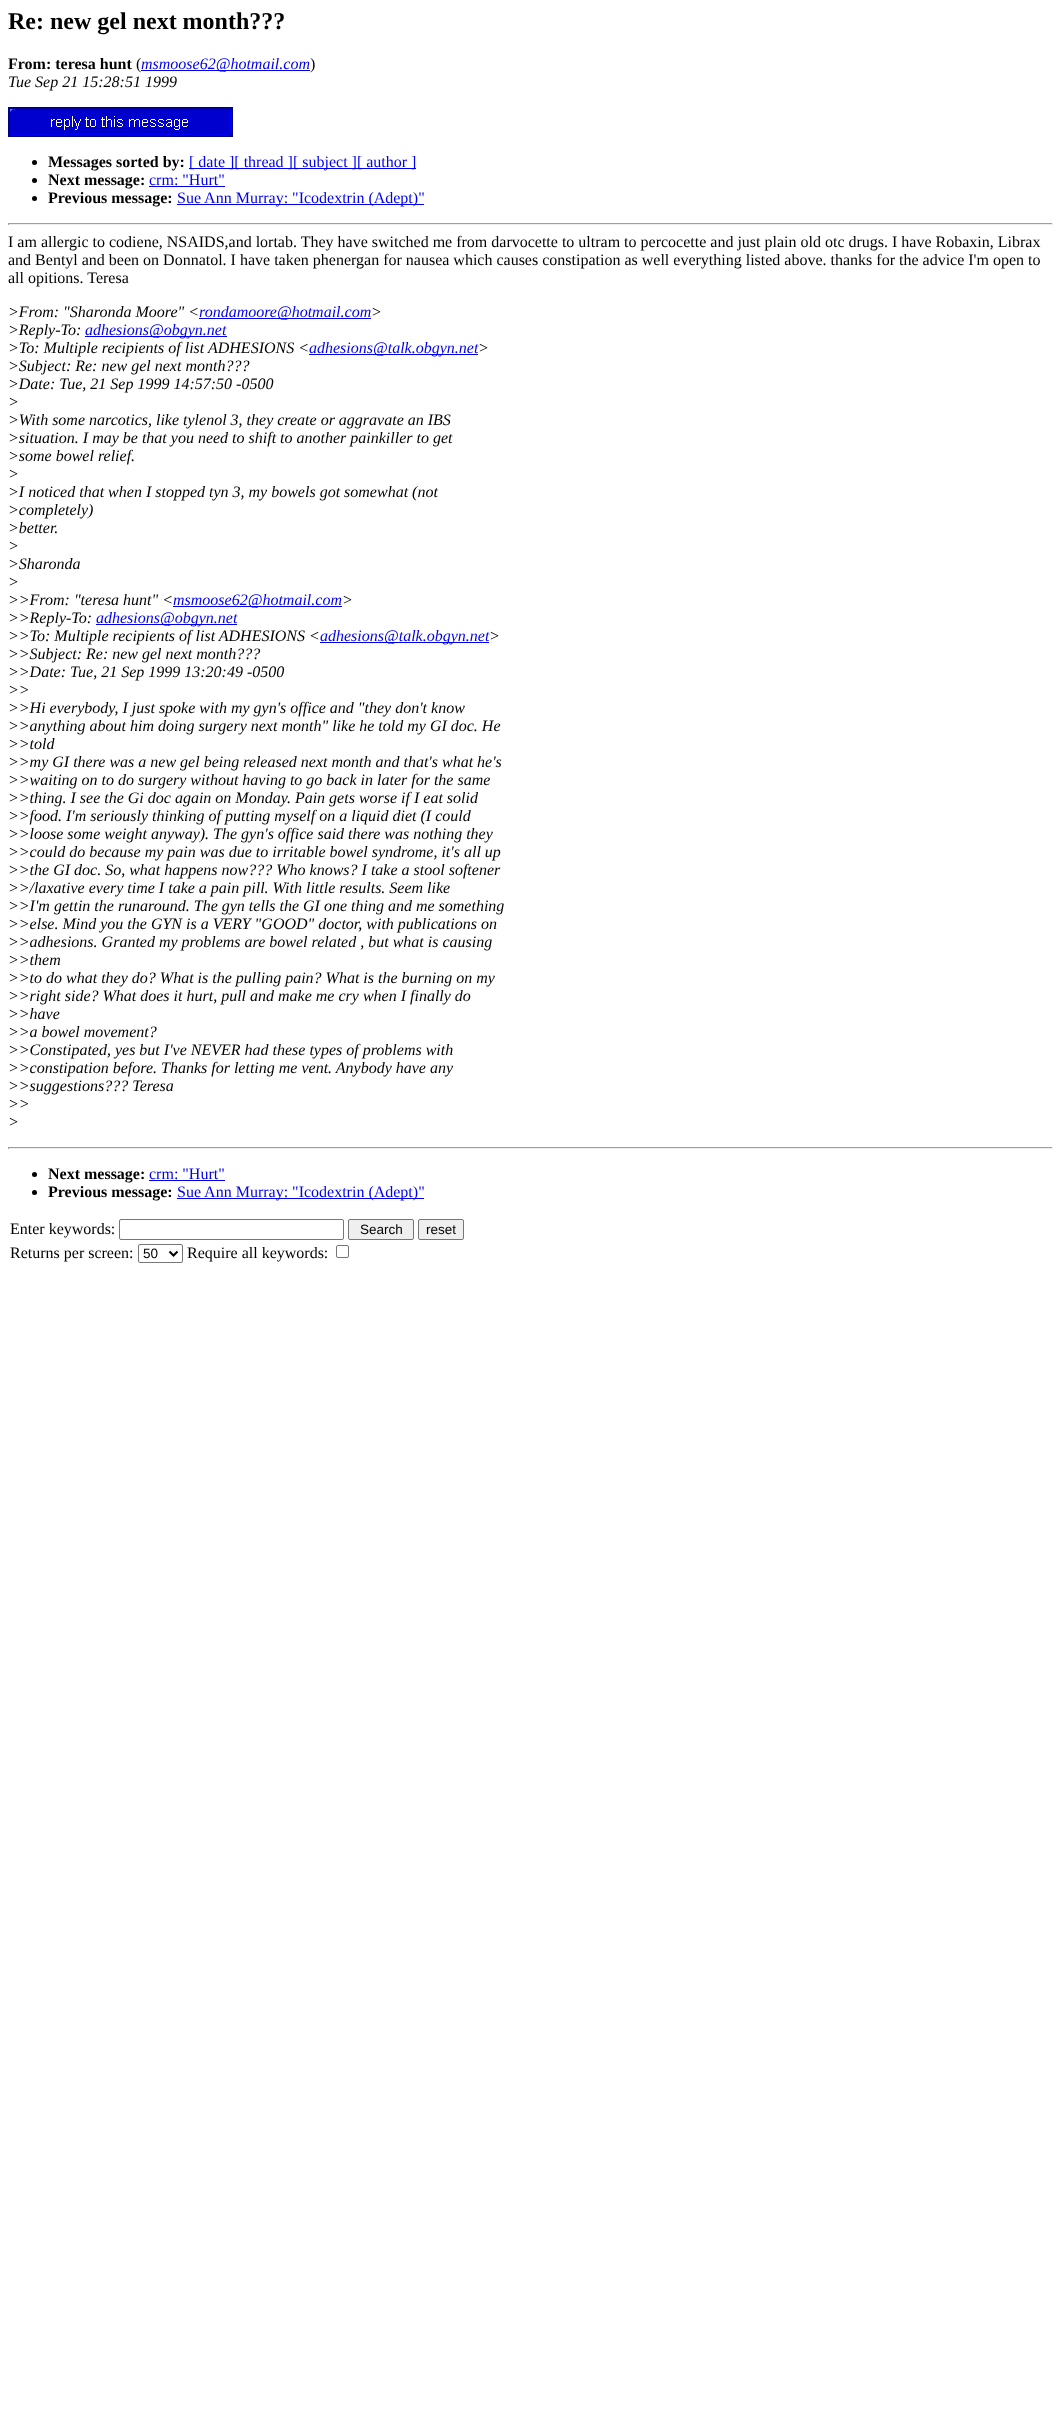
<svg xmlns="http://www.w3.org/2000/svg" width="1061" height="2435">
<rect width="100%" height="100%" fill="#fff"/>
<text x="8" y="29" style="font-family:Liberation Serif;font-size:24px;font-weight:bold;fill:#000">Re: new gel next month???</text>
<text x="8" y="69" style="font-family:Liberation Serif;font-size:16px;font-weight:bold;fill:#000">From: teresa hunt</text>
<text x="136" y="69" style="font-family:Liberation Serif;font-size:16px;fill:#000">(</text>
<rect x="141" y="70" width="169" height="1" fill="#00e"/>
<text x="141" y="69" style="font-family:Liberation Serif;font-size:16px;font-style:italic;fill:#00e">msmoose62@hotmail.com</text>
<text x="310" y="69" style="font-family:Liberation Serif;font-size:16px;fill:#000">)</text>
<text x="8" y="87" style="font-family:Liberation Serif;font-size:16px;font-style:italic;fill:#000">Tue Sep 21 15:28:51 1999</text>
<image x="8" y="107" width="225" height="30" href="media/1.png"/>
<circle cx="34.5" cy="162.5" r="2.5" fill="#000"/>
<text x="48" y="167" style="font-family:Liberation Serif;font-size:16px;font-weight:bold;fill:#000">Messages sorted by:</text>
<rect x="189" y="168" width="227" height="1" fill="#00e"/>
<text x="189" y="167" style="font-family:Liberation Serif;font-size:16px;fill:#00e">[ date ][ thread ][ subject ][ author ]</text>
<circle cx="34.5" cy="180.5" r="2.5" fill="#000"/>
<text x="48" y="185" style="font-family:Liberation Serif;font-size:16px;font-weight:bold;fill:#000">Next message:</text>
<text x="149" y="185" style="font-family:Liberation Serif;font-size:16px;fill:#00e">crm: "Hurt"</text>
<rect x="149" y="186" width="76" height="1" fill="#00e"/>
<circle cx="34.5" cy="198.5" r="2.5" fill="#000"/>
<text x="48" y="203" style="font-family:Liberation Serif;font-size:16px;font-weight:bold;fill:#000">Previous message:</text>
<rect x="177" y="204" width="247" height="1" fill="#00e"/>
<text x="177" y="203" style="font-family:Liberation Serif;font-size:16px;fill:#00e">Sue Ann Murray: "Icodextrin (Adept)"</text>
<rect x="8" y="223" width="1045" height="1" fill="#9f9f9f"/>
<rect x="1052" y="223" width="1" height="2" fill="#eee"/>
<rect x="8" y="224" width="1045" height="1" fill="#eee"/>
<rect x="8" y="223" width="1" height="2" fill="#9f9f9f"/>
<text x="8" y="247" style="font-family:Liberation Serif;font-size:16px;fill:#000">I am allergic to codiene, NSAIDS,and lortab. They have switched me from darvocette to ultram to percocette and just plain old otc drugs. I have Robaxin, Librax</text>
<text x="8" y="265" style="font-family:Liberation Serif;font-size:16px;fill:#000">and Bentyl and been on Donnatol. I have taken phenergan for nausea which causes constipation as well everything listed above. thanks for the advice I'm open to</text>
<text x="8" y="283" style="font-family:Liberation Serif;font-size:16px;fill:#000">all opitions. Teresa</text>
<text x="8" y="317" style="font-family:Liberation Serif;font-size:16px;font-style:italic;fill:#000">&gt;From: "Sharonda Moore" &lt;</text>
<rect x="199" y="318" width="172" height="1" fill="#00e"/>
<text x="199" y="317" style="font-family:Liberation Serif;font-size:16px;font-style:italic;fill:#00e">rondamoore@hotmail.com</text>
<text x="371" y="317" style="font-family:Liberation Serif;font-size:16px;font-style:italic;fill:#000">&gt;</text>
<text x="8" y="335" style="font-family:Liberation Serif;font-size:16px;font-style:italic;fill:#000">&gt;Reply-To:</text>
<rect x="85" y="336" width="142" height="1" fill="#00e"/>
<text x="85" y="335" style="font-family:Liberation Serif;font-size:16px;font-style:italic;fill:#00e">adhesions@obgyn.net</text>
<text x="8" y="353" style="font-family:Liberation Serif;font-size:16px;font-style:italic;fill:#000">&gt;To: Multiple recipients of list ADHESIONS &lt;</text>
<rect x="309" y="354" width="169" height="1" fill="#00e"/>
<text x="309" y="353" style="font-family:Liberation Serif;font-size:16px;font-style:italic;fill:#00e">adhesions@talk.obgyn.net</text>
<text x="478" y="353" style="font-family:Liberation Serif;font-size:16px;font-style:italic;fill:#000">&gt;</text>
<text x="8" y="371" style="font-family:Liberation Serif;font-size:16px;font-style:italic;fill:#000">&gt;Subject: Re: new gel next month???</text>
<text x="8" y="389" style="font-family:Liberation Serif;font-size:16px;font-style:italic;fill:#000">&gt;Date: Tue, 21 Sep 1999 14:57:50 -0500</text>
<text x="8" y="407" style="font-family:Liberation Serif;font-size:16px;font-style:italic;fill:#000">&gt;</text>
<text x="8" y="425" style="font-family:Liberation Serif;font-size:16px;font-style:italic;fill:#000">&gt;With some narcotics, like tylenol 3, they create or aggravate an IBS</text>
<text x="8" y="443" style="font-family:Liberation Serif;font-size:16px;font-style:italic;fill:#000">&gt;situation. I may be that you need to shift to another painkiller to get</text>
<text x="8" y="461" style="font-family:Liberation Serif;font-size:16px;font-style:italic;fill:#000">&gt;some bowel relief.</text>
<text x="8" y="479" style="font-family:Liberation Serif;font-size:16px;font-style:italic;fill:#000">&gt;</text>
<text x="8" y="497" style="font-family:Liberation Serif;font-size:16px;font-style:italic;fill:#000">&gt;I noticed that when I stopped tyn 3, my bowels got somewhat (not</text>
<text x="8" y="515" style="font-family:Liberation Serif;font-size:16px;font-style:italic;fill:#000">&gt;completely)</text>
<text x="8" y="533" style="font-family:Liberation Serif;font-size:16px;font-style:italic;fill:#000">&gt;better.</text>
<text x="8" y="551" style="font-family:Liberation Serif;font-size:16px;font-style:italic;fill:#000">&gt;</text>
<text x="8" y="569" style="font-family:Liberation Serif;font-size:16px;font-style:italic;fill:#000">&gt;Sharonda</text>
<text x="8" y="587" style="font-family:Liberation Serif;font-size:16px;font-style:italic;fill:#000">&gt;</text>
<text x="8" y="605" style="font-family:Liberation Serif;font-size:16px;font-style:italic;fill:#000">&gt;&gt;From: "teresa hunt" &lt;</text>
<rect x="173" y="606" width="169" height="1" fill="#00e"/>
<text x="173" y="605" style="font-family:Liberation Serif;font-size:16px;font-style:italic;fill:#00e">msmoose62@hotmail.com</text>
<text x="342" y="605" style="font-family:Liberation Serif;font-size:16px;font-style:italic;fill:#000">&gt;</text>
<text x="8" y="623" style="font-family:Liberation Serif;font-size:16px;font-style:italic;fill:#000">&gt;&gt;Reply-To:</text>
<rect x="96" y="624" width="141" height="1" fill="#00e"/>
<text x="96" y="623" style="font-family:Liberation Serif;font-size:16px;font-style:italic;fill:#00e">adhesions@obgyn.net</text>
<text x="8" y="641" style="font-family:Liberation Serif;font-size:16px;font-style:italic;fill:#000">&gt;&gt;To: Multiple recipients of list ADHESIONS &lt;</text>
<rect x="320" y="642" width="169" height="1" fill="#00e"/>
<text x="320" y="641" style="font-family:Liberation Serif;font-size:16px;font-style:italic;fill:#00e">adhesions@talk.obgyn.net</text>
<text x="489" y="641" style="font-family:Liberation Serif;font-size:16px;font-style:italic;fill:#000">&gt;</text>
<text x="8" y="659" style="font-family:Liberation Serif;font-size:16px;font-style:italic;fill:#000">&gt;&gt;Subject: Re: new gel next month???</text>
<text x="8" y="677" style="font-family:Liberation Serif;font-size:16px;font-style:italic;fill:#000">&gt;&gt;Date: Tue, 21 Sep 1999 13:20:49 -0500</text>
<text x="8" y="695" style="font-family:Liberation Serif;font-size:16px;font-style:italic;fill:#000">&gt;&gt;</text>
<text x="8" y="713" style="font-family:Liberation Serif;font-size:16px;font-style:italic;fill:#000">&gt;&gt;Hi everybody, I just spoke with my gyn's office and "they don't know</text>
<text x="8" y="731" style="font-family:Liberation Serif;font-size:16px;font-style:italic;fill:#000">&gt;&gt;anything about him doing surgery next month" like he told my GI doc. He</text>
<text x="8" y="749" style="font-family:Liberation Serif;font-size:16px;font-style:italic;fill:#000">&gt;&gt;told</text>
<text x="8" y="767" style="font-family:Liberation Serif;font-size:16px;font-style:italic;fill:#000">&gt;&gt;my GI there was a new gel being released next month and that's what he's</text>
<text x="8" y="785" style="font-family:Liberation Serif;font-size:16px;font-style:italic;fill:#000">&gt;&gt;waiting on to do surgery without having to go back in later for the same</text>
<text x="8" y="803" style="font-family:Liberation Serif;font-size:16px;font-style:italic;fill:#000">&gt;&gt;thing. I see the Gi doc again on Monday. Pain gets worse if I eat solid</text>
<text x="8" y="821" style="font-family:Liberation Serif;font-size:16px;font-style:italic;fill:#000">&gt;&gt;food. I'm seriously thinking of putting myself on a liquid diet (I could</text>
<text x="8" y="839" style="font-family:Liberation Serif;font-size:16px;font-style:italic;fill:#000">&gt;&gt;loose some weight anyway). The gyn's office said there was nothing they</text>
<text x="8" y="857" style="font-family:Liberation Serif;font-size:16px;font-style:italic;fill:#000">&gt;&gt;could do because my pain was due to irritable bowel syndrome, it's all up</text>
<text x="8" y="875" style="font-family:Liberation Serif;font-size:16px;font-style:italic;fill:#000">&gt;&gt;the GI doc. So, what happens now??? Who knows? I take a stool softener</text>
<text x="8" y="893" style="font-family:Liberation Serif;font-size:16px;font-style:italic;fill:#000">&gt;&gt;/laxative every time I take a pain pill. With little results. Seem like</text>
<text x="8" y="911" style="font-family:Liberation Serif;font-size:16px;font-style:italic;fill:#000">&gt;&gt;I'm gettin the runaround. The gyn tells the GI one thing and me something</text>
<text x="8" y="929" style="font-family:Liberation Serif;font-size:16px;font-style:italic;fill:#000">&gt;&gt;else. Mind you the GYN is a VERY "GOOD" doctor, with publications on</text>
<text x="8" y="947" style="font-family:Liberation Serif;font-size:16px;font-style:italic;fill:#000">&gt;&gt;adhesions. Granted my problems are bowel related , but what is causing</text>
<text x="8" y="965" style="font-family:Liberation Serif;font-size:16px;font-style:italic;fill:#000">&gt;&gt;them</text>
<text x="8" y="983" style="font-family:Liberation Serif;font-size:16px;font-style:italic;fill:#000">&gt;&gt;to do what they do? What is the pulling pain? What is the burning on my</text>
<text x="8" y="1001" style="font-family:Liberation Serif;font-size:16px;font-style:italic;fill:#000">&gt;&gt;right side? What does it hurt, pull and make me cry when I finally do</text>
<text x="8" y="1019" style="font-family:Liberation Serif;font-size:16px;font-style:italic;fill:#000">&gt;&gt;have</text>
<text x="8" y="1037" style="font-family:Liberation Serif;font-size:16px;font-style:italic;fill:#000">&gt;&gt;a bowel movement?</text>
<text x="8" y="1055" style="font-family:Liberation Serif;font-size:16px;font-style:italic;fill:#000">&gt;&gt;Constipated, yes but I've NEVER had these types of problems with</text>
<text x="8" y="1073" style="font-family:Liberation Serif;font-size:16px;font-style:italic;fill:#000">&gt;&gt;constipation before. Thanks for letting me vent. Anybody have any</text>
<text x="8" y="1091" style="font-family:Liberation Serif;font-size:16px;font-style:italic;fill:#000">&gt;&gt;suggestions??? Teresa</text>
<text x="8" y="1109" style="font-family:Liberation Serif;font-size:16px;font-style:italic;fill:#000">&gt;&gt;</text>
<text x="8" y="1127" style="font-family:Liberation Serif;font-size:16px;font-style:italic;fill:#000">&gt;</text>
<rect x="8" y="1147" width="1045" height="1" fill="#9f9f9f"/>
<rect x="1052" y="1147" width="1" height="2" fill="#eee"/>
<rect x="8" y="1148" width="1045" height="1" fill="#eee"/>
<rect x="8" y="1147" width="1" height="2" fill="#9f9f9f"/>
<circle cx="34.5" cy="1174.5" r="2.5" fill="#000"/>
<text x="48" y="1179" style="font-family:Liberation Serif;font-size:16px;font-weight:bold;fill:#000">Next message:</text>
<text x="149" y="1179" style="font-family:Liberation Serif;font-size:16px;fill:#00e">crm: "Hurt"</text>
<rect x="149" y="1180" width="76" height="1" fill="#00e"/>
<circle cx="34.5" cy="1192.5" r="2.5" fill="#000"/>
<text x="48" y="1197" style="font-family:Liberation Serif;font-size:16px;font-weight:bold;fill:#000">Previous message:</text>
<rect x="177" y="1198" width="247" height="1" fill="#00e"/>
<text x="177" y="1197" style="font-family:Liberation Serif;font-size:16px;fill:#00e">Sue Ann Murray: "Icodextrin (Adept)"</text>
<text x="10" y="1234" style="font-family:Liberation Serif;font-size:16px;fill:#000">Enter keywords:</text>
<rect x="119.5" y="1219.5" width="224" height="20" rx="1.5" fill="none" stroke="#767676"/>
<rect x="348.5" y="1219.5" width="65" height="20" rx="1.5" fill="#efefef" stroke="#767676"/>
<text x="360" y="1234" style="font-family:Liberation Sans;font-size:13.5px;fill:#000">Search</text>
<rect x="418.5" y="1219.5" width="45" height="20" rx="1.5" fill="#efefef" stroke="#767676"/>
<text x="426" y="1234" style="font-family:Liberation Sans;font-size:13.5px;fill:#000">reset</text>
<text x="10" y="1258" style="font-family:Liberation Serif;font-size:16px;fill:#000">Returns per screen:</text>
<rect x="138.5" y="1244.5" width="44" height="18" rx="1.5" fill="none" stroke="#767676"/>
<path d="M169.5 1251.5l4 4l4-4" fill="none" stroke="#000" stroke-width="2"/>
<text x="143" y="1258" style="font-family:Liberation Sans;font-size:13.5px;fill:#000">50</text>
<text x="187" y="1258" style="font-family:Liberation Serif;font-size:16px;fill:#000">Require all keywords:</text>
<rect x="336.5" y="1245.5" width="12" height="12" rx="1.5" fill="none" stroke="#767676"/>
</svg>
